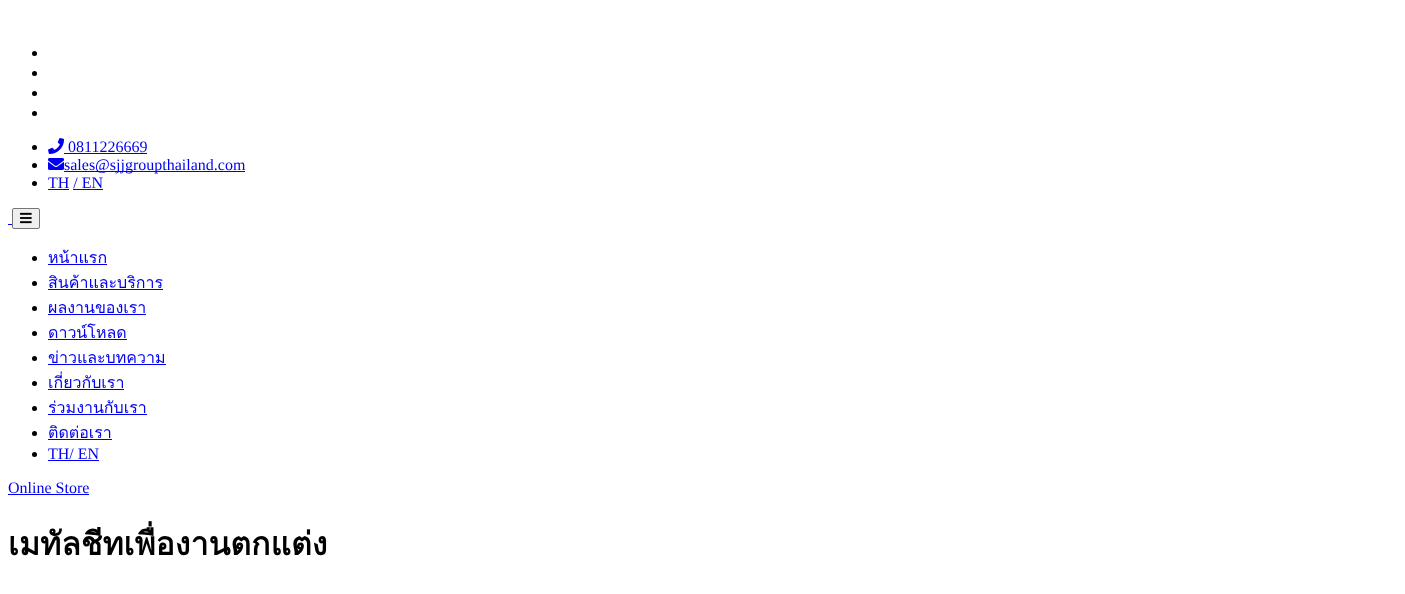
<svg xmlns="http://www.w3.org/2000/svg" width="1405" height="594">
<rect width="100%" height="100%" fill="#fff"/>
<circle cx="34.5" cy="53.5" r="2.5" fill="#000"/>
<circle cx="34.5" cy="73.5" r="2.5" fill="#000"/>
<circle cx="34.5" cy="93.5" r="2.5" fill="#000"/>
<circle cx="34.5" cy="113.5" r="2.5" fill="#000"/>
<circle cx="34.5" cy="147.5" r="2.5" fill="#000"/>
<image x="48" y="138" width="16" height="16" href="media/1.png"/>
<text x="68" y="152" style="font-family:Liberation Serif;font-size:16px;fill:#00e">0811226669</text>
<rect x="64" y="153" width="83" height="1" fill="#00e"/>
<circle cx="34.5" cy="165.5" r="2.5" fill="#000"/>
<image x="48" y="158" width="16" height="12" href="media/2.png"/>
<rect x="64" y="171" width="181" height="1" fill="#00e"/>
<text x="64" y="170" style="font-family:Liberation Serif;font-size:16px;fill:#00e">sales@sjjgroupthailand.com</text>
<circle cx="34.5" cy="183.5" r="2.5" fill="#000"/>
<text x="48" y="188" style="font-family:Liberation Serif;font-size:16px;fill:#00e">TH / EN</text>
<rect x="48" y="189" width="21" height="1" fill="#00e"/>
<rect x="73" y="189" width="30" height="1" fill="#00e"/>
<rect x="8" y="224" width="4" height="1" fill="#00e"/>
<rect x="12.5" y="208.5" width="27" height="20" rx="1.5" fill="#efefef" stroke="#767676"/>
<image x="20" y="212" width="12" height="12" href="media/3.png"/>
<circle cx="34.5" cy="258.5" r="2.5" fill="#000"/>
<text x="48" y="263" style="font-family:Loma;font-size:16px;fill:#00e">หน้าแรก</text>
<rect x="48" y="264" width="59" height="1" fill="#00e"/>
<circle cx="34.5" cy="283.5" r="2.5" fill="#000"/>
<text x="48" y="288" style="font-family:Loma;font-size:16px;fill:#00e">สินค้าและบริการ</text>
<rect x="48" y="289" width="115" height="1" fill="#00e"/>
<circle cx="34.5" cy="308.5" r="2.5" fill="#000"/>
<text x="48" y="313" style="font-family:Loma;font-size:16px;fill:#00e">ผลงานของเรา</text>
<rect x="48" y="314" width="98" height="1" fill="#00e"/>
<circle cx="34.5" cy="333.5" r="2.5" fill="#000"/>
<text x="48" y="338" style="font-family:Loma;font-size:16px;fill:#00e">ดาวน์โหลด</text>
<rect x="48" y="339" width="79" height="1" fill="#00e"/>
<circle cx="34.5" cy="358.5" r="2.5" fill="#000"/>
<text x="48" y="363" style="font-family:Loma;font-size:16px;fill:#00e">ข่าวและบทความ</text>
<rect x="48" y="364" width="118" height="1" fill="#00e"/>
<circle cx="34.5" cy="383.5" r="2.5" fill="#000"/>
<text x="48" y="388" style="font-family:Loma;font-size:16px;fill:#00e">เกี่ยวกับเรา</text>
<rect x="48" y="389" width="76" height="1" fill="#00e"/>
<circle cx="34.5" cy="408.5" r="2.5" fill="#000"/>
<text x="48" y="413" style="font-family:Loma;font-size:16px;fill:#00e">ร่วมงานกับเรา</text>
<rect x="48" y="414" width="99" height="1" fill="#00e"/>
<circle cx="34.5" cy="433.5" r="2.5" fill="#000"/>
<text x="48" y="438" style="font-family:Loma;font-size:16px;fill:#00e">ติดต่อเรา</text>
<rect x="48" y="439" width="64" height="1" fill="#00e"/>
<circle cx="34.5" cy="454.5" r="2.5" fill="#000"/>
<text x="48" y="459" style="font-family:Liberation Serif;font-size:16px;fill:#00e">TH/ EN</text>
<rect x="48" y="460" width="51" height="1" fill="#00e"/>
<text x="8" y="493" style="font-family:Liberation Serif;font-size:16px;fill:#00e">Online Store</text>
<rect x="8" y="494" width="81" height="1" fill="#00e"/>
<text x="8" y="555" style="font-family:Loma;font-size:32px;font-weight:bold;fill:#000">เมทัลชีทเพื่องานตกแต่ง</text>
</svg>
